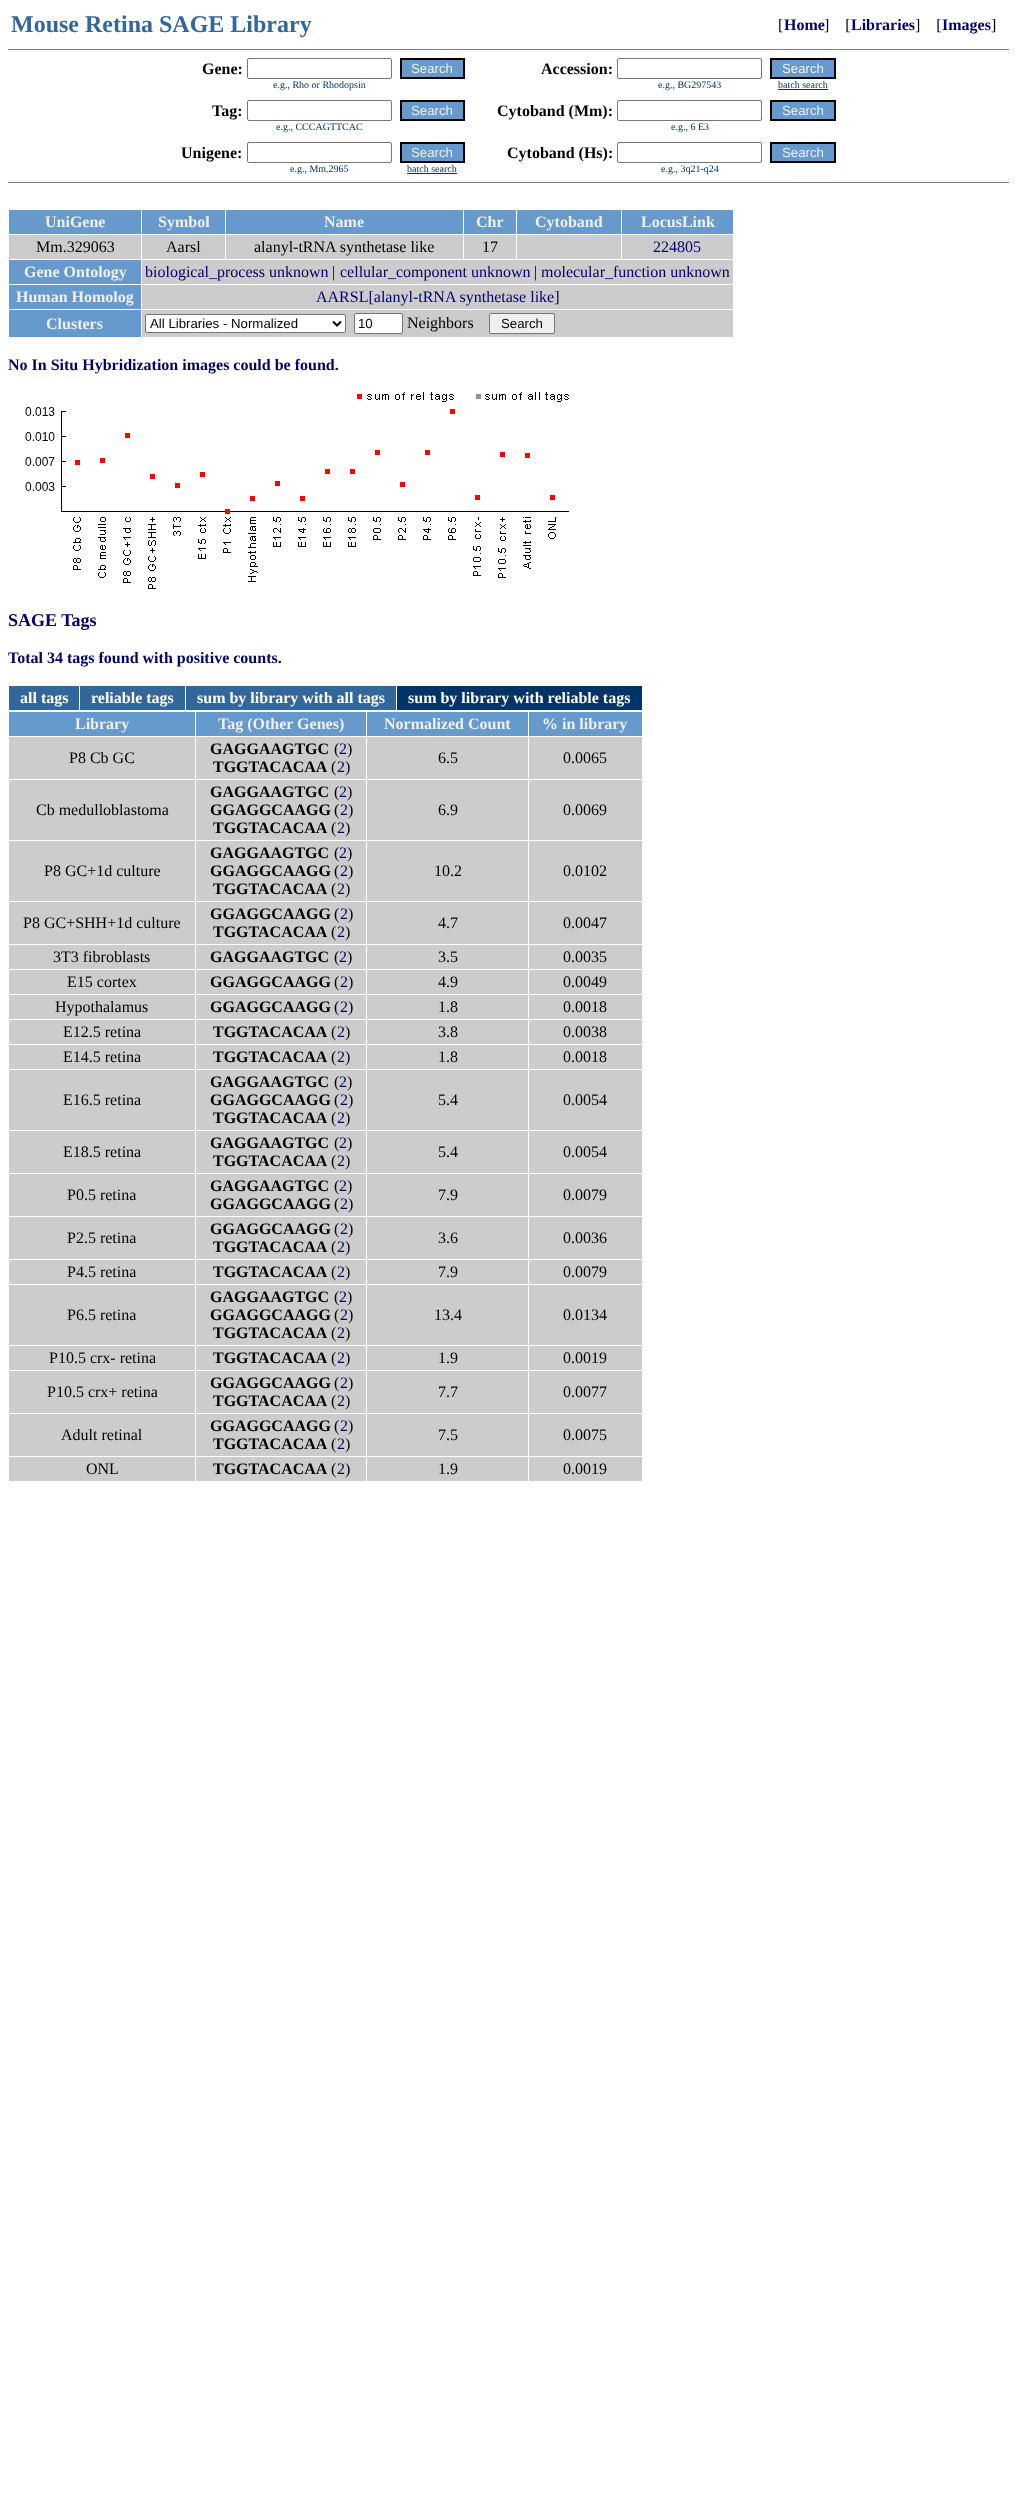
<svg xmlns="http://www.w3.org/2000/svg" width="1017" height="2494">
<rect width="100%" height="100%" fill="#fff"/>
<text x="11" y="32" style="font-family:Liberation Serif;font-size:24px;font-weight:bold;fill:#369">Mouse Retina SAGE Library</text>
<text x="778" y="30" style="font-family:Liberation Serif;font-size:16px;fill:#000">[</text>
<text x="784" y="30" style="font-family:Liberation Serif;font-size:16px;font-weight:bold;fill:#006">Home</text>
<text x="824" y="30" style="font-family:Liberation Serif;font-size:16px;fill:#000" xml:space="preserve">]    [</text>
<text x="851" y="30" style="font-family:Liberation Serif;font-size:16px;font-weight:bold;fill:#006">Libraries</text>
<text x="915" y="30" style="font-family:Liberation Serif;font-size:16px;fill:#000" xml:space="preserve">]    [</text>
<text x="942" y="30" style="font-family:Liberation Serif;font-size:16px;font-weight:bold;fill:#006">Images</text>
<text x="991" y="30" style="font-family:Liberation Serif;font-size:16px;fill:#000">]</text>
<rect x="8" y="49" width="1001" height="1" fill="#808080"/>
<text x="202" y="74" style="font-family:Liberation Serif;font-size:16px;font-weight:bold;fill:#000">Gene:</text>
<rect x="247.5" y="58.5" width="144" height="20" rx="1.5" fill="none" stroke="#767676"/>
<rect x="401" y="59" width="63" height="19" fill="#69c" stroke="#000" stroke-width="2"/>
<text x="411" y="73" style="font-family:Liberation Sans;font-size:13.25px;fill:#f0f0f0">Search</text>
<text x="541" y="74" style="font-family:Liberation Serif;font-size:16px;font-weight:bold;fill:#000">Accession:</text>
<rect x="617.5" y="58.5" width="144" height="20" rx="1.5" fill="none" stroke="#767676"/>
<rect x="771" y="59" width="64" height="19" fill="#69c" stroke="#000" stroke-width="2"/>
<text x="782" y="73" style="font-family:Liberation Sans;font-size:13.25px;fill:#f0f0f0">Search</text>
<text x="273" y="88" style="font-family:Liberation Serif;font-size:10px;fill:#036">e.g., Rho or Rhodopsin</text>
<text x="658" y="88" style="font-family:Liberation Serif;font-size:10px;fill:#036">e.g., BG297543</text>
<text x="778" y="88" style="font-family:Liberation Serif;font-size:10px;fill:#036">batch search</text>
<rect x="778" y="89" width="50" height="1" fill="#036"/>
<text x="212" y="116" style="font-family:Liberation Serif;font-size:16px;font-weight:bold;fill:#000">Tag:</text>
<rect x="247.5" y="100.5" width="144" height="20" rx="1.5" fill="none" stroke="#767676"/>
<rect x="401" y="101" width="63" height="19" fill="#69c" stroke="#000" stroke-width="2"/>
<text x="411" y="115" style="font-family:Liberation Sans;font-size:13.25px;fill:#f0f0f0">Search</text>
<text x="497" y="116" style="font-family:Liberation Serif;font-size:16px;font-weight:bold;fill:#000">Cytoband (Mm):</text>
<rect x="617.5" y="100.5" width="144" height="20" rx="1.5" fill="none" stroke="#767676"/>
<rect x="771" y="101" width="64" height="19" fill="#69c" stroke="#000" stroke-width="2"/>
<text x="782" y="115" style="font-family:Liberation Sans;font-size:13.25px;fill:#f0f0f0">Search</text>
<text x="276" y="130" style="font-family:Liberation Serif;font-size:10px;fill:#036">e.g., CCCAGTTCAC</text>
<text x="671" y="130" style="font-family:Liberation Serif;font-size:10px;fill:#036">e.g., 6 E3</text>
<text x="181" y="158" style="font-family:Liberation Serif;font-size:16px;font-weight:bold;fill:#000">Unigene:</text>
<rect x="247.5" y="142.5" width="144" height="20" rx="1.5" fill="none" stroke="#767676"/>
<rect x="401" y="143" width="63" height="19" fill="#69c" stroke="#000" stroke-width="2"/>
<text x="411" y="157" style="font-family:Liberation Sans;font-size:13.25px;fill:#f0f0f0">Search</text>
<text x="507" y="158" style="font-family:Liberation Serif;font-size:16px;font-weight:bold;fill:#000">Cytoband (Hs):</text>
<rect x="617.5" y="142.5" width="144" height="20" rx="1.5" fill="none" stroke="#767676"/>
<rect x="771" y="143" width="64" height="19" fill="#69c" stroke="#000" stroke-width="2"/>
<text x="782" y="157" style="font-family:Liberation Sans;font-size:13.25px;fill:#f0f0f0">Search</text>
<text x="290" y="172" style="font-family:Liberation Serif;font-size:10px;fill:#036">e.g., Mm.2965</text>
<text x="407" y="172" style="font-family:Liberation Serif;font-size:10px;fill:#036">batch search</text>
<rect x="407" y="173" width="50" height="1" fill="#036"/>
<text x="661" y="172" style="font-family:Liberation Serif;font-size:10px;fill:#036">e.g., 3q21-q24</text>
<rect x="8" y="182" width="1001" height="1" fill="#808080"/>
<rect x="9" y="210" width="132" height="24" fill="#69c"/>
<text x="45" y="227" style="font-family:Liberation Serif;font-size:16px;font-weight:bold;fill:#f0f0f0">UniGene</text>
<rect x="142" y="210" width="83" height="24" fill="#69c"/>
<text x="158" y="227" style="font-family:Liberation Serif;font-size:16px;font-weight:bold;fill:#f0f0f0">Symbol</text>
<rect x="226" y="210" width="237" height="24" fill="#69c"/>
<text x="324" y="227" style="font-family:Liberation Serif;font-size:16px;font-weight:bold;fill:#f0f0f0">Name</text>
<rect x="464" y="210" width="52" height="24" fill="#69c"/>
<text x="476" y="227" style="font-family:Liberation Serif;font-size:16px;font-weight:bold;fill:#f0f0f0">Chr</text>
<rect x="517" y="210" width="104" height="24" fill="#69c"/>
<text x="535" y="227" style="font-family:Liberation Serif;font-size:16px;font-weight:bold;fill:#f0f0f0">Cytoband</text>
<rect x="622" y="210" width="111" height="24" fill="#69c"/>
<text x="641" y="227" style="font-family:Liberation Serif;font-size:16px;font-weight:bold;fill:#f0f0f0">LocusLink</text>
<rect x="9" y="235" width="132" height="24" fill="#ccc"/>
<text x="36" y="252" style="font-family:Liberation Serif;font-size:16px;fill:#000">Mm.329063</text>
<rect x="142" y="235" width="83" height="24" fill="#ccc"/>
<text x="166" y="252" style="font-family:Liberation Serif;font-size:16px;fill:#000">Aarsl</text>
<rect x="226" y="235" width="237" height="24" fill="#ccc"/>
<text x="254" y="252" style="font-family:Liberation Serif;font-size:16px;fill:#000">alanyl-tRNA synthetase like</text>
<rect x="464" y="235" width="52" height="24" fill="#ccc"/>
<text x="482" y="252" style="font-family:Liberation Serif;font-size:16px;fill:#000">17</text>
<rect x="517" y="235" width="104" height="24" fill="#ccc"/>
<rect x="622" y="235" width="111" height="24" fill="#ccc"/>
<text x="653" y="252" style="font-family:Liberation Serif;font-size:16px;fill:#006">224805</text>
<rect x="9" y="260" width="132" height="24" fill="#69c"/>
<text x="24" y="277" style="font-family:Liberation Serif;font-size:16px;font-weight:bold;fill:#f0f0f0">Gene Ontology</text>
<rect x="142" y="260" width="591" height="24" fill="#ccc"/>
<text x="145" y="277" style="font-family:Liberation Serif;font-size:16px;fill:#006">biological_process unknown</text>
<text x="332" y="277" style="font-family:Liberation Serif;font-size:16px;fill:#000">|</text>
<text x="340" y="277" style="font-family:Liberation Serif;font-size:16px;fill:#006">cellular_component unknown</text>
<text x="534" y="277" style="font-family:Liberation Serif;font-size:16px;fill:#000">|</text>
<text x="541" y="277" style="font-family:Liberation Serif;font-size:16px;fill:#006">molecular_function unknown</text>
<rect x="9" y="285" width="132" height="24" fill="#69c"/>
<text x="16" y="302" style="font-family:Liberation Serif;font-size:16px;font-weight:bold;fill:#f0f0f0">Human Homolog</text>
<rect x="142" y="285" width="591" height="24" fill="#ccc"/>
<text x="316" y="302" style="font-family:Liberation Serif;font-size:16px;fill:#006">AARSL[alanyl-tRNA synthetase like]</text>
<rect x="9" y="310" width="132" height="27" fill="#69c"/>
<text x="46" y="329" style="font-family:Liberation Serif;font-size:16px;font-weight:bold;fill:#f0f0f0">Clusters</text>
<rect x="142" y="310" width="591" height="27" fill="#ccc"/>
<rect x="145.5" y="314.5" width="200" height="18" rx="1.5" fill="#fff" stroke="#767676"/>
<path d="M333 321.5l4 4l4-4" fill="none" stroke="#000" stroke-width="2"/>
<text x="150" y="328" style="font-family:Liberation Sans;font-size:13.25px;fill:#000">All Libraries - Normalized</text>
<rect x="354.5" y="313.5" width="48" height="20" rx="1.5" fill="#fff" stroke="#767676"/>
<text x="358" y="328" style="font-family:Liberation Sans;font-size:13.25px;fill:#000">10</text>
<text x="407" y="328" style="font-family:Liberation Serif;font-size:16px;fill:#000">Neighbors</text>
<rect x="489.5" y="313.5" width="65" height="20" rx="1.5" fill="#efefef" stroke="#767676"/>
<text x="501" y="328" style="font-family:Liberation Sans;font-size:13.25px;fill:#000">Search</text>
<text x="8" y="370" style="font-family:Liberation Serif;font-size:16px;font-weight:bold;fill:#006">No In Situ Hybridization images could be found.</text>
<image x="25" y="392" width="544" height="197" href="media/1.png"/>
<text x="8" y="626" style="font-family:Liberation Serif;font-size:18px;font-weight:bold;fill:#006">SAGE Tags</text>
<text x="8" y="663" style="font-family:Liberation Serif;font-size:16px;font-weight:bold;fill:#006">Total 34 tags found with positive counts.</text>
<rect x="9" y="686" width="70" height="24" fill="#369"/>
<text x="20" y="703" style="font-family:Liberation Serif;font-size:16px;font-weight:bold;fill:#fff">all tags</text>
<rect x="80" y="686" width="105" height="24" fill="#369"/>
<text x="91" y="703" style="font-family:Liberation Serif;font-size:16px;font-weight:bold;fill:#fff">reliable tags</text>
<rect x="186" y="686" width="210" height="24" fill="#369"/>
<text x="197" y="703" style="font-family:Liberation Serif;font-size:16px;font-weight:bold;fill:#fff">sum by library with all tags</text>
<rect x="397" y="686" width="245" height="24" fill="#036"/>
<text x="408" y="703" style="font-family:Liberation Serif;font-size:16px;font-weight:bold;fill:#fff">sum by library with reliable tags</text>
<rect x="9" y="712" width="186" height="24" fill="#69c"/>
<text x="75" y="729" style="font-family:Liberation Serif;font-size:16px;font-weight:bold;fill:#f0f0f0">Library</text>
<rect x="196" y="712" width="170" height="24" fill="#69c"/>
<text x="218" y="729" style="font-family:Liberation Serif;font-size:16px;font-weight:bold;fill:#f0f0f0">Tag (Other Genes)</text>
<rect x="367" y="712" width="161" height="24" fill="#69c"/>
<text x="384" y="729" style="font-family:Liberation Serif;font-size:16px;font-weight:bold;fill:#f0f0f0">Normalized Count</text>
<rect x="529" y="712" width="113" height="24" fill="#69c"/>
<text x="542" y="729" style="font-family:Liberation Serif;font-size:16px;font-weight:bold;fill:#f0f0f0">% in library</text>
<rect x="9" y="737" width="186" height="42" fill="#ccc"/>
<text x="69" y="763" style="font-family:Liberation Serif;font-size:16px;fill:#000">P8 Cb GC</text>
<rect x="196" y="737" width="170" height="42" fill="#ccc"/>
<text x="210" y="754" style="font-family:Liberation Serif;font-size:16px;font-weight:bold;fill:#000">GAGGAAGTGC</text>
<text x="334" y="754" style="font-family:Liberation Serif;font-size:16px;fill:#000">(</text>
<text x="339" y="754" style="font-family:Liberation Serif;font-size:16px;fill:#006">2</text>
<text x="347" y="754" style="font-family:Liberation Serif;font-size:16px;fill:#000">)</text>
<text x="213" y="772" style="font-family:Liberation Serif;font-size:16px;font-weight:bold;fill:#000">TGGTACACAA</text>
<text x="331" y="772" style="font-family:Liberation Serif;font-size:16px;fill:#000">(</text>
<text x="337" y="772" style="font-family:Liberation Serif;font-size:16px;fill:#006">2</text>
<text x="345" y="772" style="font-family:Liberation Serif;font-size:16px;fill:#000">)</text>
<rect x="367" y="737" width="161" height="42" fill="#ccc"/>
<text x="438" y="763" style="font-family:Liberation Serif;font-size:16px;fill:#000">6.5</text>
<rect x="529" y="737" width="113" height="42" fill="#ccc"/>
<text x="563" y="763" style="font-family:Liberation Serif;font-size:16px;fill:#000">0.0065</text>
<rect x="9" y="780" width="186" height="60" fill="#ccc"/>
<text x="36" y="815" style="font-family:Liberation Serif;font-size:16px;fill:#000">Cb medulloblastoma</text>
<rect x="196" y="780" width="170" height="60" fill="#ccc"/>
<text x="210" y="797" style="font-family:Liberation Serif;font-size:16px;font-weight:bold;fill:#000">GAGGAAGTGC</text>
<text x="334" y="797" style="font-family:Liberation Serif;font-size:16px;fill:#000">(</text>
<text x="339" y="797" style="font-family:Liberation Serif;font-size:16px;fill:#006">2</text>
<text x="347" y="797" style="font-family:Liberation Serif;font-size:16px;fill:#000">)</text>
<text x="210" y="815" style="font-family:Liberation Serif;font-size:16px;font-weight:bold;fill:#000">GGAGGCAAGG</text>
<text x="334" y="815" style="font-family:Liberation Serif;font-size:16px;fill:#000">(</text>
<text x="340" y="815" style="font-family:Liberation Serif;font-size:16px;fill:#006">2</text>
<text x="348" y="815" style="font-family:Liberation Serif;font-size:16px;fill:#000">)</text>
<text x="213" y="833" style="font-family:Liberation Serif;font-size:16px;font-weight:bold;fill:#000">TGGTACACAA</text>
<text x="331" y="833" style="font-family:Liberation Serif;font-size:16px;fill:#000">(</text>
<text x="337" y="833" style="font-family:Liberation Serif;font-size:16px;fill:#006">2</text>
<text x="345" y="833" style="font-family:Liberation Serif;font-size:16px;fill:#000">)</text>
<rect x="367" y="780" width="161" height="60" fill="#ccc"/>
<text x="438" y="815" style="font-family:Liberation Serif;font-size:16px;fill:#000">6.9</text>
<rect x="529" y="780" width="113" height="60" fill="#ccc"/>
<text x="563" y="815" style="font-family:Liberation Serif;font-size:16px;fill:#000">0.0069</text>
<rect x="9" y="841" width="186" height="60" fill="#ccc"/>
<text x="44" y="876" style="font-family:Liberation Serif;font-size:16px;fill:#000">P8 GC+1d culture</text>
<rect x="196" y="841" width="170" height="60" fill="#ccc"/>
<text x="210" y="858" style="font-family:Liberation Serif;font-size:16px;font-weight:bold;fill:#000">GAGGAAGTGC</text>
<text x="334" y="858" style="font-family:Liberation Serif;font-size:16px;fill:#000">(</text>
<text x="339" y="858" style="font-family:Liberation Serif;font-size:16px;fill:#006">2</text>
<text x="347" y="858" style="font-family:Liberation Serif;font-size:16px;fill:#000">)</text>
<text x="210" y="876" style="font-family:Liberation Serif;font-size:16px;font-weight:bold;fill:#000">GGAGGCAAGG</text>
<text x="334" y="876" style="font-family:Liberation Serif;font-size:16px;fill:#000">(</text>
<text x="340" y="876" style="font-family:Liberation Serif;font-size:16px;fill:#006">2</text>
<text x="348" y="876" style="font-family:Liberation Serif;font-size:16px;fill:#000">)</text>
<text x="213" y="894" style="font-family:Liberation Serif;font-size:16px;font-weight:bold;fill:#000">TGGTACACAA</text>
<text x="331" y="894" style="font-family:Liberation Serif;font-size:16px;fill:#000">(</text>
<text x="337" y="894" style="font-family:Liberation Serif;font-size:16px;fill:#006">2</text>
<text x="345" y="894" style="font-family:Liberation Serif;font-size:16px;fill:#000">)</text>
<rect x="367" y="841" width="161" height="60" fill="#ccc"/>
<text x="434" y="876" style="font-family:Liberation Serif;font-size:16px;fill:#000">10.2</text>
<rect x="529" y="841" width="113" height="60" fill="#ccc"/>
<text x="563" y="876" style="font-family:Liberation Serif;font-size:16px;fill:#000">0.0102</text>
<rect x="9" y="902" width="186" height="42" fill="#ccc"/>
<text x="23" y="928" style="font-family:Liberation Serif;font-size:16px;fill:#000">P8 GC+SHH+1d culture</text>
<rect x="196" y="902" width="170" height="42" fill="#ccc"/>
<text x="210" y="919" style="font-family:Liberation Serif;font-size:16px;font-weight:bold;fill:#000">GGAGGCAAGG</text>
<text x="334" y="919" style="font-family:Liberation Serif;font-size:16px;fill:#000">(</text>
<text x="340" y="919" style="font-family:Liberation Serif;font-size:16px;fill:#006">2</text>
<text x="348" y="919" style="font-family:Liberation Serif;font-size:16px;fill:#000">)</text>
<text x="213" y="937" style="font-family:Liberation Serif;font-size:16px;font-weight:bold;fill:#000">TGGTACACAA</text>
<text x="331" y="937" style="font-family:Liberation Serif;font-size:16px;fill:#000">(</text>
<text x="337" y="937" style="font-family:Liberation Serif;font-size:16px;fill:#006">2</text>
<text x="345" y="937" style="font-family:Liberation Serif;font-size:16px;fill:#000">)</text>
<rect x="367" y="902" width="161" height="42" fill="#ccc"/>
<text x="438" y="928" style="font-family:Liberation Serif;font-size:16px;fill:#000">4.7</text>
<rect x="529" y="902" width="113" height="42" fill="#ccc"/>
<text x="563" y="928" style="font-family:Liberation Serif;font-size:16px;fill:#000">0.0047</text>
<rect x="9" y="945" width="186" height="24" fill="#ccc"/>
<text x="53" y="962" style="font-family:Liberation Serif;font-size:16px;fill:#000">3T3 fibroblasts</text>
<rect x="196" y="945" width="170" height="24" fill="#ccc"/>
<text x="210" y="962" style="font-family:Liberation Serif;font-size:16px;font-weight:bold;fill:#000">GAGGAAGTGC</text>
<text x="334" y="962" style="font-family:Liberation Serif;font-size:16px;fill:#000">(</text>
<text x="339" y="962" style="font-family:Liberation Serif;font-size:16px;fill:#006">2</text>
<text x="347" y="962" style="font-family:Liberation Serif;font-size:16px;fill:#000">)</text>
<rect x="367" y="945" width="161" height="24" fill="#ccc"/>
<text x="438" y="962" style="font-family:Liberation Serif;font-size:16px;fill:#000">3.5</text>
<rect x="529" y="945" width="113" height="24" fill="#ccc"/>
<text x="563" y="962" style="font-family:Liberation Serif;font-size:16px;fill:#000">0.0035</text>
<rect x="9" y="970" width="186" height="24" fill="#ccc"/>
<text x="67" y="987" style="font-family:Liberation Serif;font-size:16px;fill:#000">E15 cortex</text>
<rect x="196" y="970" width="170" height="24" fill="#ccc"/>
<text x="210" y="987" style="font-family:Liberation Serif;font-size:16px;font-weight:bold;fill:#000">GGAGGCAAGG</text>
<text x="334" y="987" style="font-family:Liberation Serif;font-size:16px;fill:#000">(</text>
<text x="340" y="987" style="font-family:Liberation Serif;font-size:16px;fill:#006">2</text>
<text x="348" y="987" style="font-family:Liberation Serif;font-size:16px;fill:#000">)</text>
<rect x="367" y="970" width="161" height="24" fill="#ccc"/>
<text x="438" y="987" style="font-family:Liberation Serif;font-size:16px;fill:#000">4.9</text>
<rect x="529" y="970" width="113" height="24" fill="#ccc"/>
<text x="563" y="987" style="font-family:Liberation Serif;font-size:16px;fill:#000">0.0049</text>
<rect x="9" y="995" width="186" height="24" fill="#ccc"/>
<text x="55" y="1012" style="font-family:Liberation Serif;font-size:16px;fill:#000">Hypothalamus</text>
<rect x="196" y="995" width="170" height="24" fill="#ccc"/>
<text x="210" y="1012" style="font-family:Liberation Serif;font-size:16px;font-weight:bold;fill:#000">GGAGGCAAGG</text>
<text x="334" y="1012" style="font-family:Liberation Serif;font-size:16px;fill:#000">(</text>
<text x="340" y="1012" style="font-family:Liberation Serif;font-size:16px;fill:#006">2</text>
<text x="348" y="1012" style="font-family:Liberation Serif;font-size:16px;fill:#000">)</text>
<rect x="367" y="995" width="161" height="24" fill="#ccc"/>
<text x="438" y="1012" style="font-family:Liberation Serif;font-size:16px;fill:#000">1.8</text>
<rect x="529" y="995" width="113" height="24" fill="#ccc"/>
<text x="563" y="1012" style="font-family:Liberation Serif;font-size:16px;fill:#000">0.0018</text>
<rect x="9" y="1020" width="186" height="24" fill="#ccc"/>
<text x="63" y="1037" style="font-family:Liberation Serif;font-size:16px;fill:#000">E12.5 retina</text>
<rect x="196" y="1020" width="170" height="24" fill="#ccc"/>
<text x="213" y="1037" style="font-family:Liberation Serif;font-size:16px;font-weight:bold;fill:#000">TGGTACACAA</text>
<text x="331" y="1037" style="font-family:Liberation Serif;font-size:16px;fill:#000">(</text>
<text x="337" y="1037" style="font-family:Liberation Serif;font-size:16px;fill:#006">2</text>
<text x="345" y="1037" style="font-family:Liberation Serif;font-size:16px;fill:#000">)</text>
<rect x="367" y="1020" width="161" height="24" fill="#ccc"/>
<text x="438" y="1037" style="font-family:Liberation Serif;font-size:16px;fill:#000">3.8</text>
<rect x="529" y="1020" width="113" height="24" fill="#ccc"/>
<text x="563" y="1037" style="font-family:Liberation Serif;font-size:16px;fill:#000">0.0038</text>
<rect x="9" y="1045" width="186" height="24" fill="#ccc"/>
<text x="63" y="1062" style="font-family:Liberation Serif;font-size:16px;fill:#000">E14.5 retina</text>
<rect x="196" y="1045" width="170" height="24" fill="#ccc"/>
<text x="213" y="1062" style="font-family:Liberation Serif;font-size:16px;font-weight:bold;fill:#000">TGGTACACAA</text>
<text x="331" y="1062" style="font-family:Liberation Serif;font-size:16px;fill:#000">(</text>
<text x="337" y="1062" style="font-family:Liberation Serif;font-size:16px;fill:#006">2</text>
<text x="345" y="1062" style="font-family:Liberation Serif;font-size:16px;fill:#000">)</text>
<rect x="367" y="1045" width="161" height="24" fill="#ccc"/>
<text x="438" y="1062" style="font-family:Liberation Serif;font-size:16px;fill:#000">1.8</text>
<rect x="529" y="1045" width="113" height="24" fill="#ccc"/>
<text x="563" y="1062" style="font-family:Liberation Serif;font-size:16px;fill:#000">0.0018</text>
<rect x="9" y="1070" width="186" height="60" fill="#ccc"/>
<text x="63" y="1105" style="font-family:Liberation Serif;font-size:16px;fill:#000">E16.5 retina</text>
<rect x="196" y="1070" width="170" height="60" fill="#ccc"/>
<text x="210" y="1087" style="font-family:Liberation Serif;font-size:16px;font-weight:bold;fill:#000">GAGGAAGTGC</text>
<text x="334" y="1087" style="font-family:Liberation Serif;font-size:16px;fill:#000">(</text>
<text x="339" y="1087" style="font-family:Liberation Serif;font-size:16px;fill:#006">2</text>
<text x="347" y="1087" style="font-family:Liberation Serif;font-size:16px;fill:#000">)</text>
<text x="210" y="1105" style="font-family:Liberation Serif;font-size:16px;font-weight:bold;fill:#000">GGAGGCAAGG</text>
<text x="334" y="1105" style="font-family:Liberation Serif;font-size:16px;fill:#000">(</text>
<text x="340" y="1105" style="font-family:Liberation Serif;font-size:16px;fill:#006">2</text>
<text x="348" y="1105" style="font-family:Liberation Serif;font-size:16px;fill:#000">)</text>
<text x="213" y="1123" style="font-family:Liberation Serif;font-size:16px;font-weight:bold;fill:#000">TGGTACACAA</text>
<text x="331" y="1123" style="font-family:Liberation Serif;font-size:16px;fill:#000">(</text>
<text x="337" y="1123" style="font-family:Liberation Serif;font-size:16px;fill:#006">2</text>
<text x="345" y="1123" style="font-family:Liberation Serif;font-size:16px;fill:#000">)</text>
<rect x="367" y="1070" width="161" height="60" fill="#ccc"/>
<text x="438" y="1105" style="font-family:Liberation Serif;font-size:16px;fill:#000">5.4</text>
<rect x="529" y="1070" width="113" height="60" fill="#ccc"/>
<text x="563" y="1105" style="font-family:Liberation Serif;font-size:16px;fill:#000">0.0054</text>
<rect x="9" y="1131" width="186" height="42" fill="#ccc"/>
<text x="63" y="1157" style="font-family:Liberation Serif;font-size:16px;fill:#000">E18.5 retina</text>
<rect x="196" y="1131" width="170" height="42" fill="#ccc"/>
<text x="210" y="1148" style="font-family:Liberation Serif;font-size:16px;font-weight:bold;fill:#000">GAGGAAGTGC</text>
<text x="334" y="1148" style="font-family:Liberation Serif;font-size:16px;fill:#000">(</text>
<text x="339" y="1148" style="font-family:Liberation Serif;font-size:16px;fill:#006">2</text>
<text x="347" y="1148" style="font-family:Liberation Serif;font-size:16px;fill:#000">)</text>
<text x="213" y="1166" style="font-family:Liberation Serif;font-size:16px;font-weight:bold;fill:#000">TGGTACACAA</text>
<text x="331" y="1166" style="font-family:Liberation Serif;font-size:16px;fill:#000">(</text>
<text x="337" y="1166" style="font-family:Liberation Serif;font-size:16px;fill:#006">2</text>
<text x="345" y="1166" style="font-family:Liberation Serif;font-size:16px;fill:#000">)</text>
<rect x="367" y="1131" width="161" height="42" fill="#ccc"/>
<text x="438" y="1157" style="font-family:Liberation Serif;font-size:16px;fill:#000">5.4</text>
<rect x="529" y="1131" width="113" height="42" fill="#ccc"/>
<text x="563" y="1157" style="font-family:Liberation Serif;font-size:16px;fill:#000">0.0054</text>
<rect x="9" y="1174" width="186" height="42" fill="#ccc"/>
<text x="67" y="1200" style="font-family:Liberation Serif;font-size:16px;fill:#000">P0.5 retina</text>
<rect x="196" y="1174" width="170" height="42" fill="#ccc"/>
<text x="210" y="1191" style="font-family:Liberation Serif;font-size:16px;font-weight:bold;fill:#000">GAGGAAGTGC</text>
<text x="334" y="1191" style="font-family:Liberation Serif;font-size:16px;fill:#000">(</text>
<text x="339" y="1191" style="font-family:Liberation Serif;font-size:16px;fill:#006">2</text>
<text x="347" y="1191" style="font-family:Liberation Serif;font-size:16px;fill:#000">)</text>
<text x="210" y="1209" style="font-family:Liberation Serif;font-size:16px;font-weight:bold;fill:#000">GGAGGCAAGG</text>
<text x="334" y="1209" style="font-family:Liberation Serif;font-size:16px;fill:#000">(</text>
<text x="340" y="1209" style="font-family:Liberation Serif;font-size:16px;fill:#006">2</text>
<text x="348" y="1209" style="font-family:Liberation Serif;font-size:16px;fill:#000">)</text>
<rect x="367" y="1174" width="161" height="42" fill="#ccc"/>
<text x="438" y="1200" style="font-family:Liberation Serif;font-size:16px;fill:#000">7.9</text>
<rect x="529" y="1174" width="113" height="42" fill="#ccc"/>
<text x="563" y="1200" style="font-family:Liberation Serif;font-size:16px;fill:#000">0.0079</text>
<rect x="9" y="1217" width="186" height="42" fill="#ccc"/>
<text x="67" y="1243" style="font-family:Liberation Serif;font-size:16px;fill:#000">P2.5 retina</text>
<rect x="196" y="1217" width="170" height="42" fill="#ccc"/>
<text x="210" y="1234" style="font-family:Liberation Serif;font-size:16px;font-weight:bold;fill:#000">GGAGGCAAGG</text>
<text x="334" y="1234" style="font-family:Liberation Serif;font-size:16px;fill:#000">(</text>
<text x="340" y="1234" style="font-family:Liberation Serif;font-size:16px;fill:#006">2</text>
<text x="348" y="1234" style="font-family:Liberation Serif;font-size:16px;fill:#000">)</text>
<text x="213" y="1252" style="font-family:Liberation Serif;font-size:16px;font-weight:bold;fill:#000">TGGTACACAA</text>
<text x="331" y="1252" style="font-family:Liberation Serif;font-size:16px;fill:#000">(</text>
<text x="337" y="1252" style="font-family:Liberation Serif;font-size:16px;fill:#006">2</text>
<text x="345" y="1252" style="font-family:Liberation Serif;font-size:16px;fill:#000">)</text>
<rect x="367" y="1217" width="161" height="42" fill="#ccc"/>
<text x="438" y="1243" style="font-family:Liberation Serif;font-size:16px;fill:#000">3.6</text>
<rect x="529" y="1217" width="113" height="42" fill="#ccc"/>
<text x="563" y="1243" style="font-family:Liberation Serif;font-size:16px;fill:#000">0.0036</text>
<rect x="9" y="1260" width="186" height="24" fill="#ccc"/>
<text x="67" y="1277" style="font-family:Liberation Serif;font-size:16px;fill:#000">P4.5 retina</text>
<rect x="196" y="1260" width="170" height="24" fill="#ccc"/>
<text x="213" y="1277" style="font-family:Liberation Serif;font-size:16px;font-weight:bold;fill:#000">TGGTACACAA</text>
<text x="331" y="1277" style="font-family:Liberation Serif;font-size:16px;fill:#000">(</text>
<text x="337" y="1277" style="font-family:Liberation Serif;font-size:16px;fill:#006">2</text>
<text x="345" y="1277" style="font-family:Liberation Serif;font-size:16px;fill:#000">)</text>
<rect x="367" y="1260" width="161" height="24" fill="#ccc"/>
<text x="438" y="1277" style="font-family:Liberation Serif;font-size:16px;fill:#000">7.9</text>
<rect x="529" y="1260" width="113" height="24" fill="#ccc"/>
<text x="563" y="1277" style="font-family:Liberation Serif;font-size:16px;fill:#000">0.0079</text>
<rect x="9" y="1285" width="186" height="60" fill="#ccc"/>
<text x="67" y="1320" style="font-family:Liberation Serif;font-size:16px;fill:#000">P6.5 retina</text>
<rect x="196" y="1285" width="170" height="60" fill="#ccc"/>
<text x="210" y="1302" style="font-family:Liberation Serif;font-size:16px;font-weight:bold;fill:#000">GAGGAAGTGC</text>
<text x="334" y="1302" style="font-family:Liberation Serif;font-size:16px;fill:#000">(</text>
<text x="339" y="1302" style="font-family:Liberation Serif;font-size:16px;fill:#006">2</text>
<text x="347" y="1302" style="font-family:Liberation Serif;font-size:16px;fill:#000">)</text>
<text x="210" y="1320" style="font-family:Liberation Serif;font-size:16px;font-weight:bold;fill:#000">GGAGGCAAGG</text>
<text x="334" y="1320" style="font-family:Liberation Serif;font-size:16px;fill:#000">(</text>
<text x="340" y="1320" style="font-family:Liberation Serif;font-size:16px;fill:#006">2</text>
<text x="348" y="1320" style="font-family:Liberation Serif;font-size:16px;fill:#000">)</text>
<text x="213" y="1338" style="font-family:Liberation Serif;font-size:16px;font-weight:bold;fill:#000">TGGTACACAA</text>
<text x="331" y="1338" style="font-family:Liberation Serif;font-size:16px;fill:#000">(</text>
<text x="337" y="1338" style="font-family:Liberation Serif;font-size:16px;fill:#006">2</text>
<text x="345" y="1338" style="font-family:Liberation Serif;font-size:16px;fill:#000">)</text>
<rect x="367" y="1285" width="161" height="60" fill="#ccc"/>
<text x="434" y="1320" style="font-family:Liberation Serif;font-size:16px;fill:#000">13.4</text>
<rect x="529" y="1285" width="113" height="60" fill="#ccc"/>
<text x="563" y="1320" style="font-family:Liberation Serif;font-size:16px;fill:#000">0.0134</text>
<rect x="9" y="1346" width="186" height="24" fill="#ccc"/>
<text x="49" y="1363" style="font-family:Liberation Serif;font-size:16px;fill:#000">P10.5 crx- retina</text>
<rect x="196" y="1346" width="170" height="24" fill="#ccc"/>
<text x="213" y="1363" style="font-family:Liberation Serif;font-size:16px;font-weight:bold;fill:#000">TGGTACACAA</text>
<text x="331" y="1363" style="font-family:Liberation Serif;font-size:16px;fill:#000">(</text>
<text x="337" y="1363" style="font-family:Liberation Serif;font-size:16px;fill:#006">2</text>
<text x="345" y="1363" style="font-family:Liberation Serif;font-size:16px;fill:#000">)</text>
<rect x="367" y="1346" width="161" height="24" fill="#ccc"/>
<text x="438" y="1363" style="font-family:Liberation Serif;font-size:16px;fill:#000">1.9</text>
<rect x="529" y="1346" width="113" height="24" fill="#ccc"/>
<text x="563" y="1363" style="font-family:Liberation Serif;font-size:16px;fill:#000">0.0019</text>
<rect x="9" y="1371" width="186" height="42" fill="#ccc"/>
<text x="47" y="1397" style="font-family:Liberation Serif;font-size:16px;fill:#000">P10.5 crx+ retina</text>
<rect x="196" y="1371" width="170" height="42" fill="#ccc"/>
<text x="210" y="1388" style="font-family:Liberation Serif;font-size:16px;font-weight:bold;fill:#000">GGAGGCAAGG</text>
<text x="334" y="1388" style="font-family:Liberation Serif;font-size:16px;fill:#000">(</text>
<text x="340" y="1388" style="font-family:Liberation Serif;font-size:16px;fill:#006">2</text>
<text x="348" y="1388" style="font-family:Liberation Serif;font-size:16px;fill:#000">)</text>
<text x="213" y="1406" style="font-family:Liberation Serif;font-size:16px;font-weight:bold;fill:#000">TGGTACACAA</text>
<text x="331" y="1406" style="font-family:Liberation Serif;font-size:16px;fill:#000">(</text>
<text x="337" y="1406" style="font-family:Liberation Serif;font-size:16px;fill:#006">2</text>
<text x="345" y="1406" style="font-family:Liberation Serif;font-size:16px;fill:#000">)</text>
<rect x="367" y="1371" width="161" height="42" fill="#ccc"/>
<text x="438" y="1397" style="font-family:Liberation Serif;font-size:16px;fill:#000">7.7</text>
<rect x="529" y="1371" width="113" height="42" fill="#ccc"/>
<text x="563" y="1397" style="font-family:Liberation Serif;font-size:16px;fill:#000">0.0077</text>
<rect x="9" y="1414" width="186" height="42" fill="#ccc"/>
<text x="61" y="1440" style="font-family:Liberation Serif;font-size:16px;fill:#000">Adult retinal</text>
<rect x="196" y="1414" width="170" height="42" fill="#ccc"/>
<text x="210" y="1431" style="font-family:Liberation Serif;font-size:16px;font-weight:bold;fill:#000">GGAGGCAAGG</text>
<text x="334" y="1431" style="font-family:Liberation Serif;font-size:16px;fill:#000">(</text>
<text x="340" y="1431" style="font-family:Liberation Serif;font-size:16px;fill:#006">2</text>
<text x="348" y="1431" style="font-family:Liberation Serif;font-size:16px;fill:#000">)</text>
<text x="213" y="1449" style="font-family:Liberation Serif;font-size:16px;font-weight:bold;fill:#000">TGGTACACAA</text>
<text x="331" y="1449" style="font-family:Liberation Serif;font-size:16px;fill:#000">(</text>
<text x="337" y="1449" style="font-family:Liberation Serif;font-size:16px;fill:#006">2</text>
<text x="345" y="1449" style="font-family:Liberation Serif;font-size:16px;fill:#000">)</text>
<rect x="367" y="1414" width="161" height="42" fill="#ccc"/>
<text x="438" y="1440" style="font-family:Liberation Serif;font-size:16px;fill:#000">7.5</text>
<rect x="529" y="1414" width="113" height="42" fill="#ccc"/>
<text x="563" y="1440" style="font-family:Liberation Serif;font-size:16px;fill:#000">0.0075</text>
<rect x="9" y="1457" width="186" height="24" fill="#ccc"/>
<text x="86" y="1474" style="font-family:Liberation Serif;font-size:16px;fill:#000">ONL</text>
<rect x="196" y="1457" width="170" height="24" fill="#ccc"/>
<text x="213" y="1474" style="font-family:Liberation Serif;font-size:16px;font-weight:bold;fill:#000">TGGTACACAA</text>
<text x="331" y="1474" style="font-family:Liberation Serif;font-size:16px;fill:#000">(</text>
<text x="337" y="1474" style="font-family:Liberation Serif;font-size:16px;fill:#006">2</text>
<text x="345" y="1474" style="font-family:Liberation Serif;font-size:16px;fill:#000">)</text>
<rect x="367" y="1457" width="161" height="24" fill="#ccc"/>
<text x="438" y="1474" style="font-family:Liberation Serif;font-size:16px;fill:#000">1.9</text>
<rect x="529" y="1457" width="113" height="24" fill="#ccc"/>
<text x="563" y="1474" style="font-family:Liberation Serif;font-size:16px;fill:#000">0.0019</text>
</svg>
